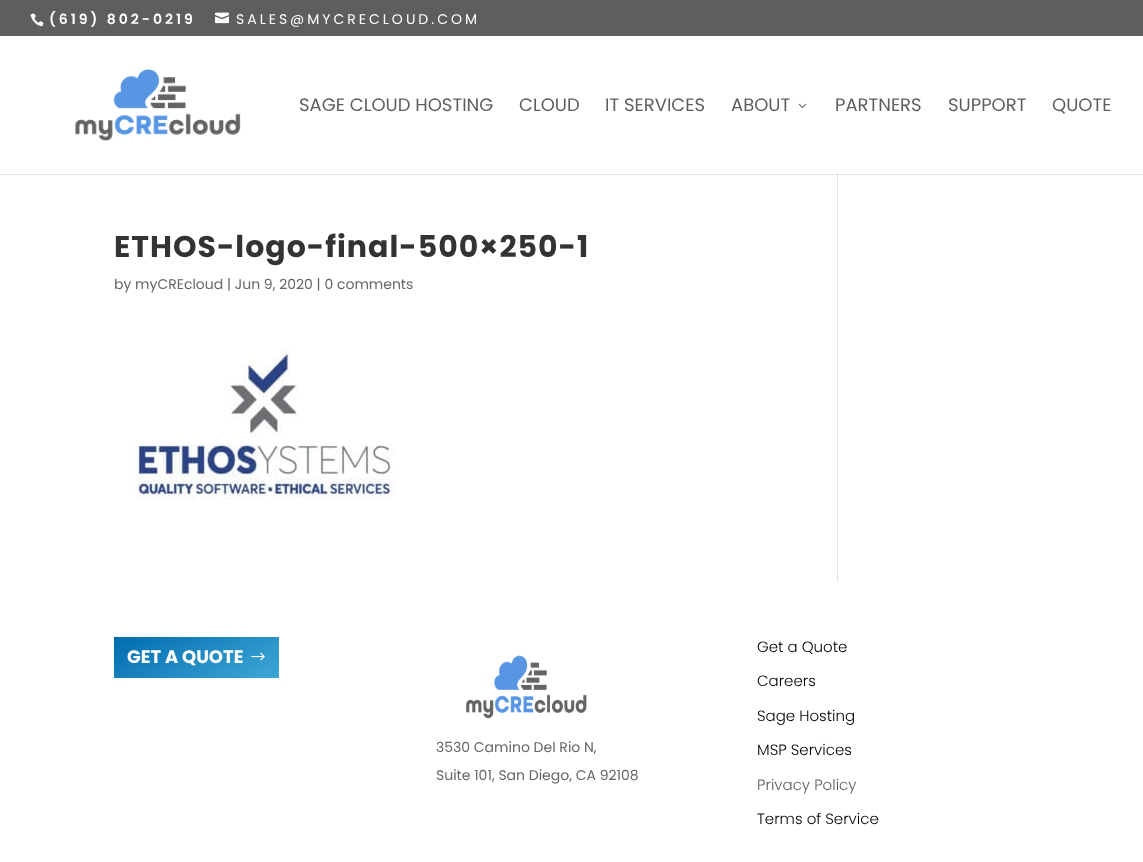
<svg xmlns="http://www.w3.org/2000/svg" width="1143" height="862">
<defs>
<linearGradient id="g1" gradientUnits="userSpaceOnUse" x1="167" y1="606" x2="226" y2="709"><stop offset="0" stop-color="#006caf"/><stop offset="1" stop-color="#3fa7d6"/></linearGradient>
</defs>
<rect width="100%" height="100%" fill="#fff"/>
<rect y="174" width="1143" height="1" fill="#e6e6e6"/>
<rect width="1143" height="36" fill="#5e5e5e"/>
<image x="30" y="13" width="14" height="14" href="media/1.png"/>
<text x="49" y="24" style="font-family:Poppins;font-size:14px;font-weight:600;letter-spacing:3px;fill:#fff">(619) 802-0219</text>
<image x="215" y="12" width="14" height="12" href="media/2.png"/>
<text x="236" y="24" style="font-family:Poppins;font-size:14px;letter-spacing:3px;fill:#fff">SALES@MYCRECLOUD.COM</text>
<image x="74" y="69" width="167" height="72" href="media/3.png"/>
<text x="299" y="111" style="font-family:Poppins;font-size:18px;fill:#5e5e5e">SAGE CLOUD HOSTING</text>
<text x="519" y="111" style="font-family:Poppins;font-size:18px;fill:#5e5e5e">CLOUD</text>
<text x="605" y="111" style="font-family:Poppins;font-size:18px;fill:#5e5e5e">IT SERVICES</text>
<text x="731" y="111" style="font-family:Poppins;font-size:18px;fill:#5e5e5e">ABOUT</text>
<image x="798" y="103" width="9" height="5" href="media/4.png"/>
<text x="835" y="111" style="font-family:Poppins;font-size:18px;fill:#5e5e5e">PARTNERS</text>
<text x="948" y="111" style="font-family:Poppins;font-size:18px;fill:#5e5e5e">SUPPORT</text>
<text x="1052" y="111" style="font-family:Poppins;font-size:18px;fill:#5e5e5e">QUOTE</text>
<text x="114" y="257" style="font-family:Poppins;font-size:30px;font-weight:bold;letter-spacing:1px;fill:#333">ETHOS-logo-final-500×250-1</text>
<text x="114" y="289" style="font-family:Poppins;font-size:14px;fill:#666">by myCREcloud | Jun 9, 2020 | 0 comments</text>
<image x="130" y="349" width="268" height="150" href="media/5.png"/>
<rect x="837" y="174" width="1" height="408" fill="#e2e2e2"/>
<rect x="837" y="174" width="1" height="1" fill="#cbcbcb"/>
<rect x="114" y="637" width="165" height="41" fill="url(#g1)"/>
<text x="127" y="663" style="font-family:Poppins;font-size:18px;font-weight:bold;fill:#fff">GET A QUOTE</text>
<image x="251" y="652" width="14" height="9" href="media/6.png"/>
<text x="757" y="652" style="font-family:Poppins;font-size:15px;font-weight:300;fill:#000">Get a Quote</text>
<text x="757" y="686" style="font-family:Poppins;font-size:15px;font-weight:300;fill:#000">Careers</text>
<text x="757" y="721" style="font-family:Poppins;font-size:15px;font-weight:300;fill:#000">Sage Hosting</text>
<text x="757" y="755" style="font-family:Poppins;font-size:15px;font-weight:300;fill:#000">MSP Services</text>
<text x="757" y="790" style="font-family:Poppins;font-size:15px;font-weight:300;fill:#5e5e5e">Privacy Policy</text>
<text x="757" y="824" style="font-family:Poppins;font-size:15px;font-weight:300;fill:#000">Terms of Service</text>
<image x="465" y="655" width="122" height="64" href="media/7.png"/>
<text x="436" y="752" style="font-family:Poppins;font-size:14px;fill:#666">3530 Camino Del Rio N,</text>
<text x="436" y="780" style="font-family:Poppins;font-size:14px;fill:#666">Suite 101, San Diego, CA 92108</text>
</svg>
